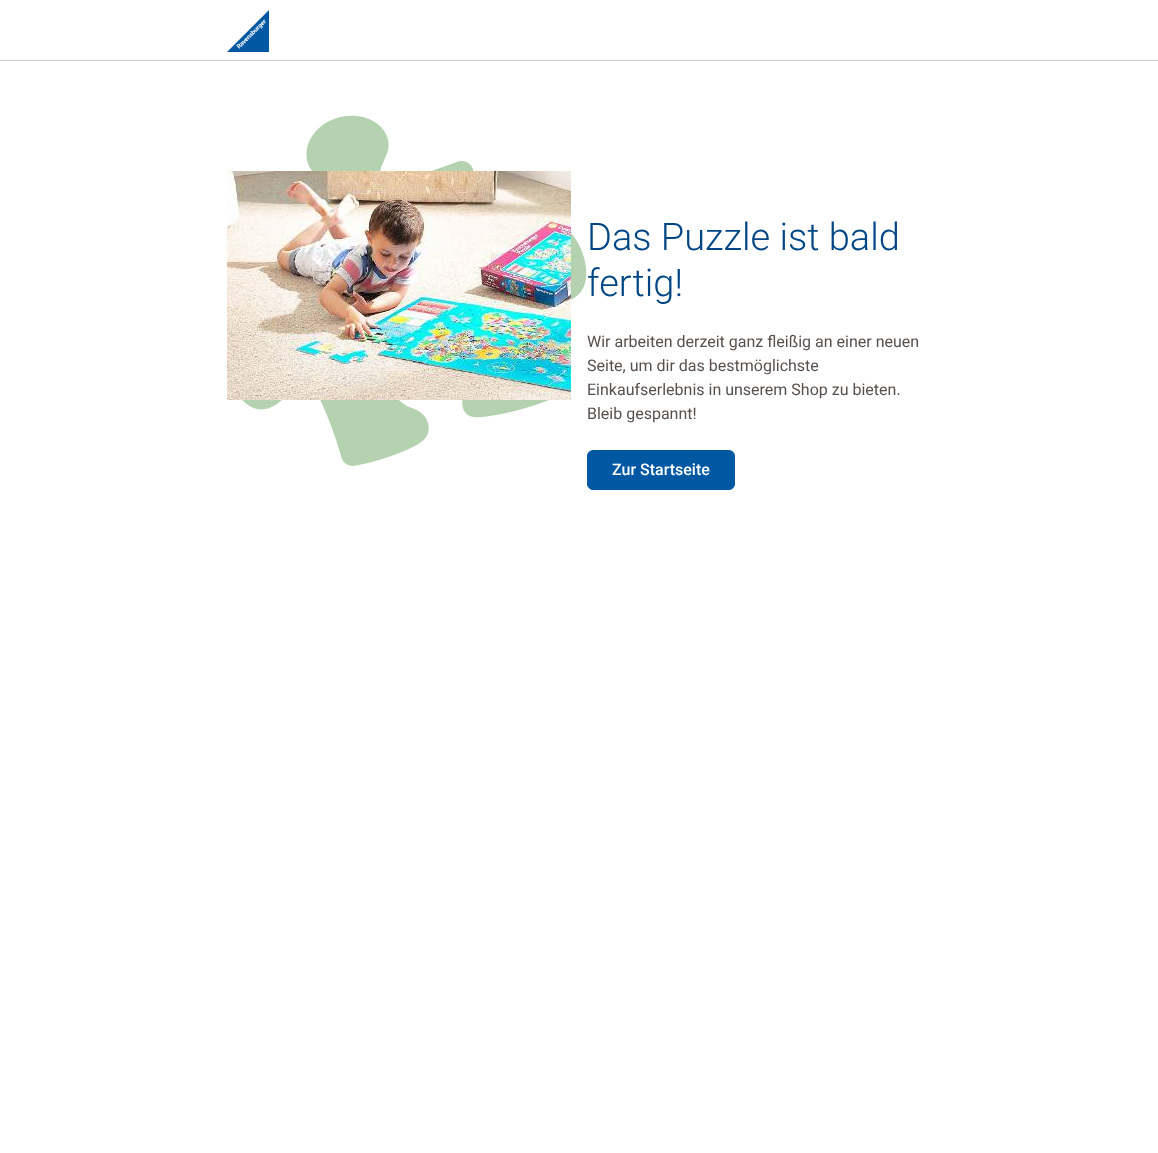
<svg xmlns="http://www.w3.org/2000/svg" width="1158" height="1153">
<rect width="100%" height="100%" fill="#fff"/>
<rect y="60" width="1158" height="1" fill="#c9cdd0"/>
<image x="227" y="10" width="42" height="42" href="media/1.png"/>
<image x="242" y="115" width="345" height="351" href="media/2.png"/>
<image x="227" y="171" width="344" height="229" href="media/3.png"/>
<text x="587" y="250" style="font-family:Roboto;font-size:38px;font-weight:300;fill:#004684">Das Puzzle ist bald</text>
<text x="587" y="296" style="font-family:Roboto;font-size:38px;font-weight:300;fill:#004684">fertig!</text>
<text x="587" y="347" style="font-family:Roboto;font-size:16px;fill:#58504d">Wir arbeiten derzeit ganz fleißig an einer neuen</text>
<text x="587" y="371" style="font-family:Roboto;font-size:16px;fill:#58504d">Seite, um dir das bestmöglichste</text>
<text x="587" y="395" style="font-family:Roboto;font-size:16px;fill:#58504d">Einkaufserlebnis in unserem Shop zu bieten.</text>
<text x="587" y="419" style="font-family:Roboto;font-size:16px;fill:#58504d">Bleib gespannt!</text>
<rect x="587.5" y="450.5" width="147" height="39" rx="5.5" fill="#0058a2" stroke="#0058a2"/>
<text x="612" y="475" style="font-family:Roboto;font-size:16px;font-weight:500;fill:#fff">Zur Startseite</text>
</svg>
